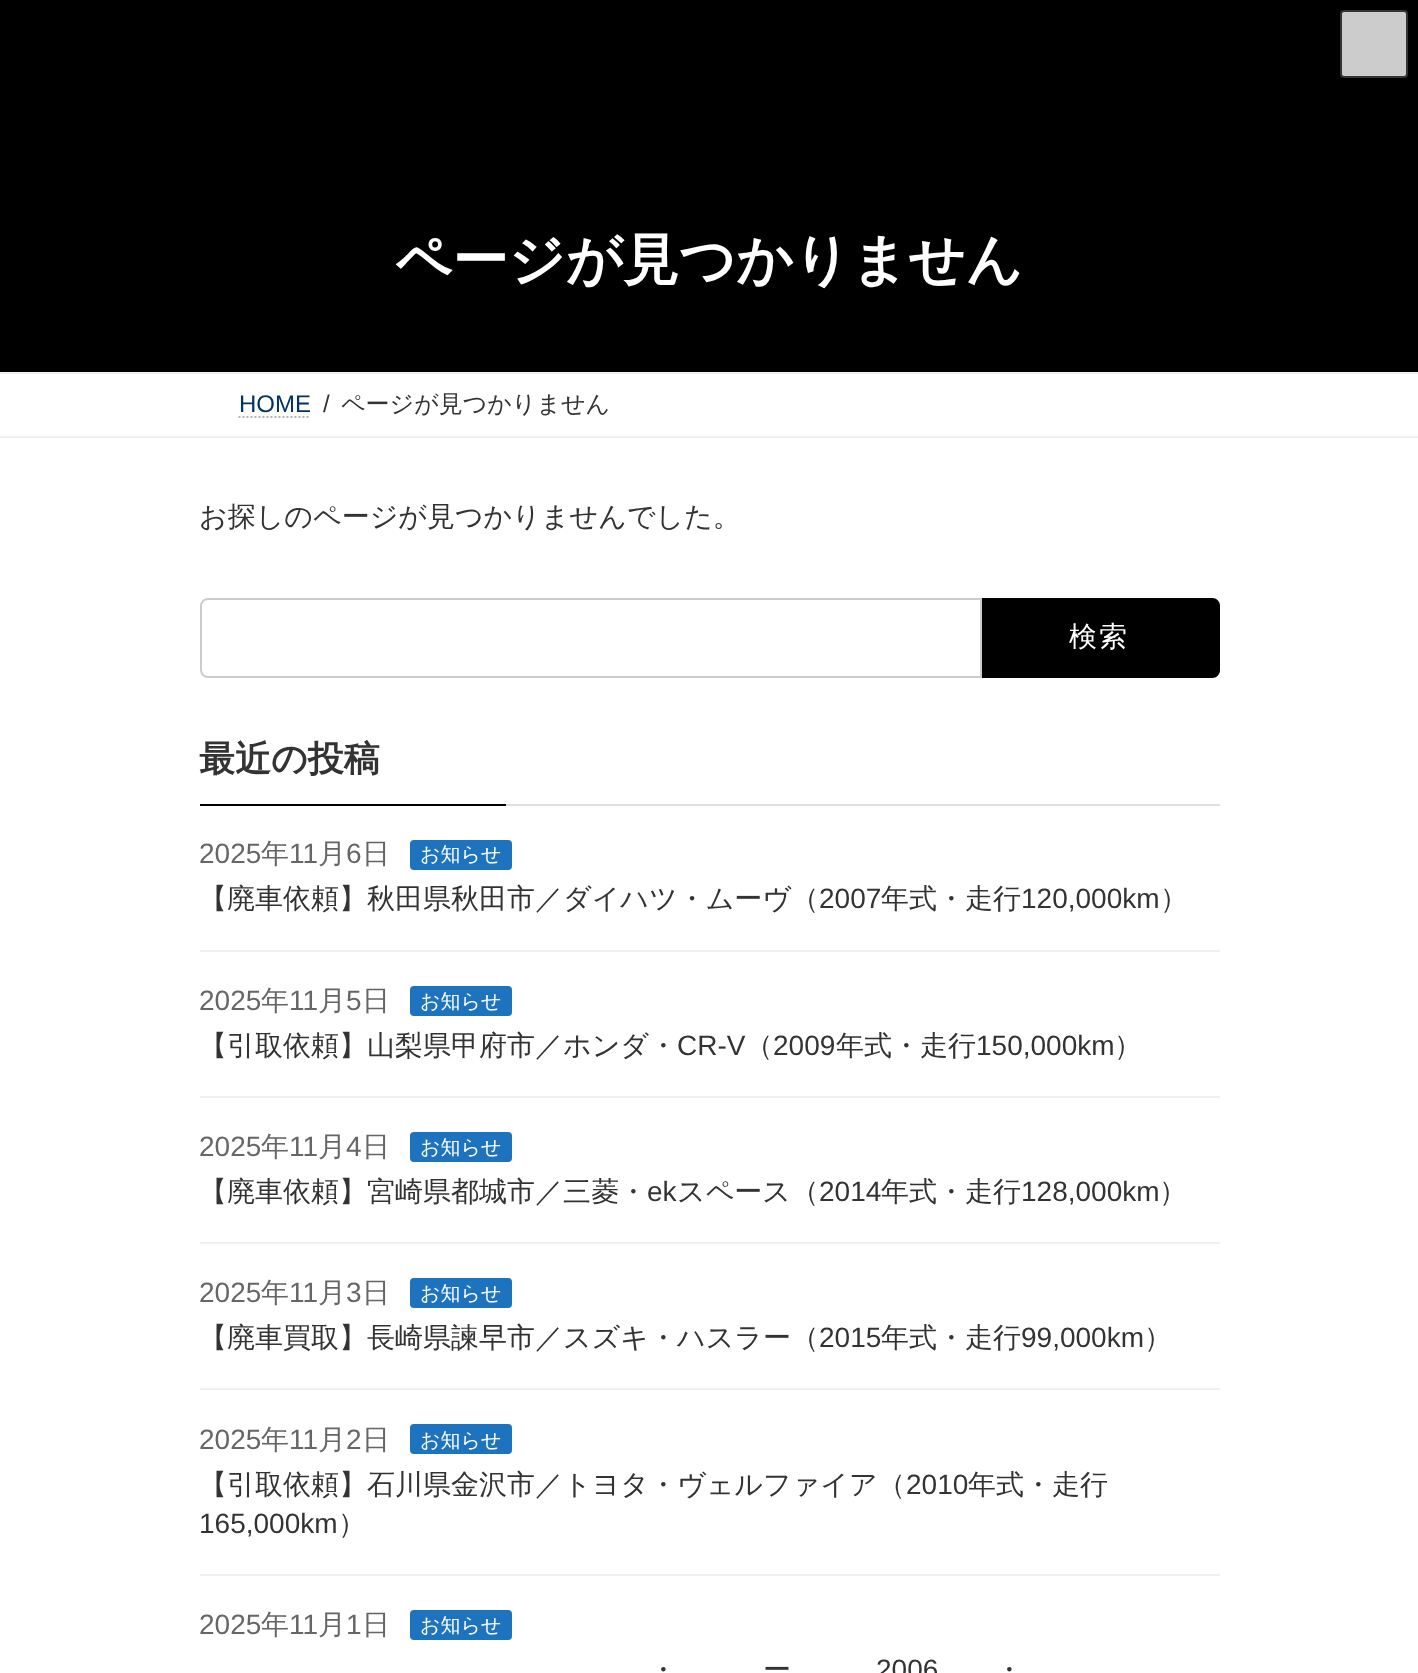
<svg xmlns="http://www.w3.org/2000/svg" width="1418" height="1673">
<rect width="100%" height="100%" fill="#fff"/>
<rect width="1418" height="372" fill="#000"/>
<rect x="1341" y="11" width="66" height="66" rx="3" fill="#ccc" stroke="#333" stroke-width="2"/>
<text x="395" y="279" style="font-family:WenQuanYi Zen Hei;font-size:56px;font-weight:bold;fill:#fff">ページが見つかりません</text>
<rect y="372" width="1418" height="2" fill="#f0f0f0"/>
<rect y="436" width="1418" height="2" fill="#f0f0f0"/>
<text x="239" y="412" style="font-family:Liberation Sans;font-size:24px;fill:#036">HOME</text>
<path d="M238.5 417h72" fill="none" stroke="#b3b3b3" stroke-width="2" stroke-dasharray="2 2"/>
<text x="323" y="412" style="font-family:Liberation Sans;font-size:24px;fill:#333">/</text>
<text x="341" y="412" style="font-family:WenQuanYi Zen Hei;font-size:24px;font-weight:500;fill:#333">ページが見つかりません</text>
<text x="199" y="526" style="font-family:WenQuanYi Zen Hei;font-size:28px;font-weight:500;fill:#333">お探しのページが見つかりませんでした。</text>
<path d="M208 599h773v78h-773c-4 0-7-3-7-7v-64c0-4 3-7 7-7z" fill="none" stroke="#ccc" stroke-width="2"/>
<path d="M982 598h230c4.5 0 8 3.5 8 8v64c0 4.5-3.5 8-8 8h-230z" fill="#000"/>
<path d="M982 598h230c4 0 8 4 8 8v64c0 4-4 8-8 8h-230zm0 2h230c3 0 6 3 6 6v64c0 3-3 6-6 6h-230z" fill="#00000033" fill-rule="evenodd"/>
<text x="1069" y="646" style="font-family:WenQuanYi Zen Hei;font-size:28px;font-weight:500;letter-spacing:2px;fill:#fff">検索</text>
<rect x="506" y="804" width="714" height="2" fill="#e0e0e0"/>
<text x="199" y="771" style="font-family:WenQuanYi Zen Hei;font-size:36px;font-weight:bold;fill:#333">最近の投稿</text>
<rect x="200" y="804" width="306" height="2" fill="#000"/>
<rect x="200" y="950" width="1020" height="2" fill="#f0f0f0"/>
<text x="199" y="863" style="font-family:Liberation Sans;font-size:28px;fill:#666">2025</text>
<text x="261" y="863" style="font-family:WenQuanYi Zen Hei;font-size:28px;font-weight:500;fill:#666">年</text>
<text x="289" y="863" style="font-family:Liberation Sans;font-size:28px;fill:#666">11</text>
<text x="318" y="863" style="font-family:WenQuanYi Zen Hei;font-size:28px;font-weight:500;fill:#666">月</text>
<text x="346" y="863" style="font-family:Liberation Sans;font-size:28px;fill:#666">6</text>
<text x="362" y="863" style="font-family:WenQuanYi Zen Hei;font-size:28px;font-weight:500;fill:#666">日</text>
<rect x="410" y="840" width="102" height="30" rx="4" fill="#1e73be"/>
<text x="420" y="861" style="font-family:WenQuanYi Zen Hei;font-size:20px;font-weight:500;fill:#fff">お知らせ</text>
<text x="199" y="908" style="font-family:WenQuanYi Zen Hei;font-size:28px;font-weight:500;fill:#333">【廃車依頼】秋田県秋田市／ダイハツ・ムーヴ（</text>
<text x="819" y="908" style="font-family:Liberation Sans;font-size:28px;fill:#333">2007</text>
<text x="881" y="908" style="font-family:WenQuanYi Zen Hei;font-size:28px;font-weight:500;fill:#333">年式・走行</text>
<text x="1021" y="908" style="font-family:Liberation Sans;font-size:28px;fill:#333">120,000km</text>
<text x="1160" y="908" style="font-family:WenQuanYi Zen Hei;font-size:28px;font-weight:500;fill:#333">）</text>
<rect x="200" y="1096" width="1020" height="2" fill="#f0f0f0"/>
<text x="199" y="1010" style="font-family:Liberation Sans;font-size:28px;fill:#666">2025</text>
<text x="261" y="1010" style="font-family:WenQuanYi Zen Hei;font-size:28px;font-weight:500;fill:#666">年</text>
<text x="289" y="1010" style="font-family:Liberation Sans;font-size:28px;fill:#666">11</text>
<text x="318" y="1010" style="font-family:WenQuanYi Zen Hei;font-size:28px;font-weight:500;fill:#666">月</text>
<text x="346" y="1010" style="font-family:Liberation Sans;font-size:28px;fill:#666">5</text>
<text x="362" y="1010" style="font-family:WenQuanYi Zen Hei;font-size:28px;font-weight:500;fill:#666">日</text>
<rect x="410" y="986" width="102" height="30" rx="4" fill="#1e73be"/>
<text x="420" y="1008" style="font-family:WenQuanYi Zen Hei;font-size:20px;font-weight:500;fill:#fff">お知らせ</text>
<text x="199" y="1055" style="font-family:WenQuanYi Zen Hei;font-size:28px;font-weight:500;fill:#333">【引取依頼】山梨県甲府市／ホンダ・</text>
<text x="677" y="1055" style="font-family:Liberation Sans;font-size:28px;fill:#333">CR-V</text>
<text x="745" y="1055" style="font-family:WenQuanYi Zen Hei;font-size:28px;font-weight:500;fill:#333">（</text>
<text x="773" y="1055" style="font-family:Liberation Sans;font-size:28px;fill:#333">2009</text>
<text x="836" y="1055" style="font-family:WenQuanYi Zen Hei;font-size:28px;font-weight:500;fill:#333">年式・走行</text>
<text x="976" y="1055" style="font-family:Liberation Sans;font-size:28px;fill:#333">150,000km</text>
<text x="1114" y="1055" style="font-family:WenQuanYi Zen Hei;font-size:28px;font-weight:500;fill:#333">）</text>
<rect x="200" y="1242" width="1020" height="2" fill="#f0f0f0"/>
<text x="199" y="1156" style="font-family:Liberation Sans;font-size:28px;fill:#666">2025</text>
<text x="261" y="1156" style="font-family:WenQuanYi Zen Hei;font-size:28px;font-weight:500;fill:#666">年</text>
<text x="289" y="1156" style="font-family:Liberation Sans;font-size:28px;fill:#666">11</text>
<text x="318" y="1156" style="font-family:WenQuanYi Zen Hei;font-size:28px;font-weight:500;fill:#666">月</text>
<text x="346" y="1156" style="font-family:Liberation Sans;font-size:28px;fill:#666">4</text>
<text x="362" y="1156" style="font-family:WenQuanYi Zen Hei;font-size:28px;font-weight:500;fill:#666">日</text>
<rect x="410" y="1132" width="102" height="30" rx="4" fill="#1e73be"/>
<text x="420" y="1154" style="font-family:WenQuanYi Zen Hei;font-size:20px;font-weight:500;fill:#fff">お知らせ</text>
<text x="199" y="1201" style="font-family:WenQuanYi Zen Hei;font-size:28px;font-weight:500;fill:#333">【廃車依頼】宮崎県都城市／三菱・</text>
<text x="647" y="1201" style="font-family:Liberation Sans;font-size:28px;fill:#333">ek</text>
<text x="677" y="1201" style="font-family:WenQuanYi Zen Hei;font-size:28px;font-weight:500;fill:#333">スペース（</text>
<text x="819" y="1201" style="font-family:Liberation Sans;font-size:28px;fill:#333">2014</text>
<text x="881" y="1201" style="font-family:WenQuanYi Zen Hei;font-size:28px;font-weight:500;fill:#333">年式・走行</text>
<text x="1021" y="1201" style="font-family:Liberation Sans;font-size:28px;fill:#333">128,000km</text>
<text x="1159" y="1201" style="font-family:WenQuanYi Zen Hei;font-size:28px;font-weight:500;fill:#333">）</text>
<rect x="200" y="1388" width="1020" height="2" fill="#f0f0f0"/>
<text x="199" y="1302" style="font-family:Liberation Sans;font-size:28px;fill:#666">2025</text>
<text x="261" y="1302" style="font-family:WenQuanYi Zen Hei;font-size:28px;font-weight:500;fill:#666">年</text>
<text x="289" y="1302" style="font-family:Liberation Sans;font-size:28px;fill:#666">11</text>
<text x="318" y="1302" style="font-family:WenQuanYi Zen Hei;font-size:28px;font-weight:500;fill:#666">月</text>
<text x="346" y="1302" style="font-family:Liberation Sans;font-size:28px;fill:#666">3</text>
<text x="362" y="1302" style="font-family:WenQuanYi Zen Hei;font-size:28px;font-weight:500;fill:#666">日</text>
<rect x="410" y="1278" width="102" height="30" rx="4" fill="#1e73be"/>
<text x="420" y="1300" style="font-family:WenQuanYi Zen Hei;font-size:20px;font-weight:500;fill:#fff">お知らせ</text>
<text x="199" y="1347" style="font-family:WenQuanYi Zen Hei;font-size:28px;font-weight:500;fill:#333">【廃車買取】長崎県諫早市／スズキ・ハスラー（</text>
<text x="819" y="1347" style="font-family:Liberation Sans;font-size:28px;fill:#333">2015</text>
<text x="881" y="1347" style="font-family:WenQuanYi Zen Hei;font-size:28px;font-weight:500;fill:#333">年式・走行</text>
<text x="1021" y="1347" style="font-family:Liberation Sans;font-size:28px;fill:#333">99,000km</text>
<text x="1144" y="1347" style="font-family:WenQuanYi Zen Hei;font-size:28px;font-weight:500;fill:#333">）</text>
<rect x="200" y="1574" width="1020" height="2" fill="#f0f0f0"/>
<text x="199" y="1449" style="font-family:Liberation Sans;font-size:28px;fill:#666">2025</text>
<text x="261" y="1449" style="font-family:WenQuanYi Zen Hei;font-size:28px;font-weight:500;fill:#666">年</text>
<text x="289" y="1449" style="font-family:Liberation Sans;font-size:28px;fill:#666">11</text>
<text x="318" y="1449" style="font-family:WenQuanYi Zen Hei;font-size:28px;font-weight:500;fill:#666">月</text>
<text x="346" y="1449" style="font-family:Liberation Sans;font-size:28px;fill:#666">2</text>
<text x="362" y="1449" style="font-family:WenQuanYi Zen Hei;font-size:28px;font-weight:500;fill:#666">日</text>
<rect x="410" y="1424" width="102" height="30" rx="4" fill="#1e73be"/>
<text x="420" y="1447" style="font-family:WenQuanYi Zen Hei;font-size:20px;font-weight:500;fill:#fff">お知らせ</text>
<text x="199" y="1494" style="font-family:WenQuanYi Zen Hei;font-size:28px;font-weight:500;fill:#333">【引取依頼】石川県金沢市／トヨタ・ヴェルファイア（</text>
<text x="906" y="1494" style="font-family:Liberation Sans;font-size:28px;fill:#333">2010</text>
<text x="968" y="1494" style="font-family:WenQuanYi Zen Hei;font-size:28px;font-weight:500;fill:#333">年式・走行</text>
<text x="199" y="1533" style="font-family:Liberation Sans;font-size:28px;fill:#333">165,000km</text>
<text x="338" y="1533" style="font-family:WenQuanYi Zen Hei;font-size:28px;font-weight:500;fill:#333">）</text>
<text x="199" y="1634" style="font-family:Liberation Sans;font-size:28px;fill:#666">2025</text>
<text x="261" y="1634" style="font-family:WenQuanYi Zen Hei;font-size:28px;font-weight:500;fill:#666">年</text>
<text x="289" y="1634" style="font-family:Liberation Sans;font-size:28px;fill:#666">11</text>
<text x="318" y="1634" style="font-family:WenQuanYi Zen Hei;font-size:28px;font-weight:500;fill:#666">月</text>
<text x="346" y="1634" style="font-family:Liberation Sans;font-size:28px;fill:#666">1</text>
<text x="362" y="1634" style="font-family:WenQuanYi Zen Hei;font-size:28px;font-weight:500;fill:#666">日</text>
<rect x="410" y="1610" width="102" height="30" rx="4" fill="#1e73be"/>
<text x="420" y="1632" style="font-family:WenQuanYi Zen Hei;font-size:20px;font-weight:500;fill:#fff">お知らせ</text>
<text x="649" y="1679" style="font-family:WenQuanYi Zen Hei;font-size:28px;font-weight:500;fill:#333">・</text>
<text x="763" y="1679" style="font-family:WenQuanYi Zen Hei;font-size:28px;font-weight:500;fill:#333">ー</text>
<text x="876" y="1679" style="font-family:Liberation Sans;font-size:28px;fill:#333">2006</text>
<text x="995" y="1679" style="font-family:WenQuanYi Zen Hei;font-size:28px;font-weight:500;fill:#333">・</text>
</svg>
